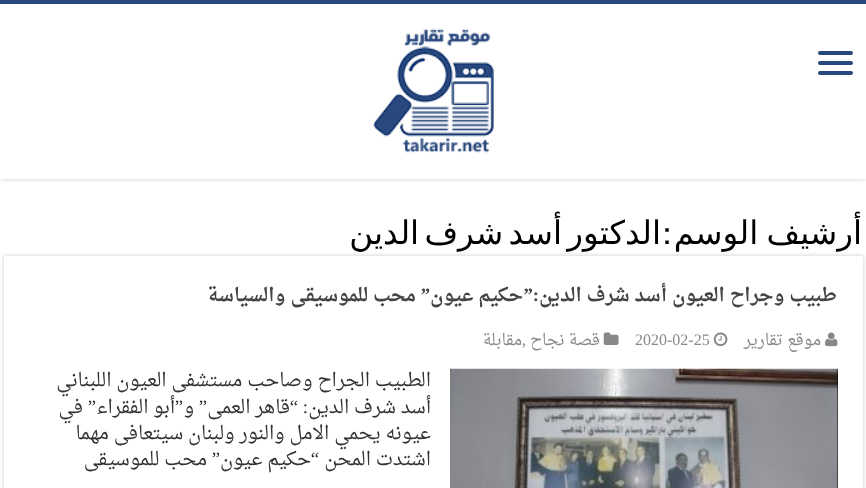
<svg xmlns="http://www.w3.org/2000/svg" width="866" height="488">
<rect width="100%" height="100%" fill="#fff"/>
<rect width="866" height="179" fill="#cacaca" filter="blur(2px)"/>
<rect y="4" width="866" height="175" fill="#fff"/>
<rect width="866" height="4" fill="#29487d"/>
<rect x="818" y="51" width="35" height="4" rx="2" fill="#29487d"/>
<rect x="818" y="61" width="35" height="4" rx="2" fill="#29487d"/>
<rect x="818" y="71" width="35" height="4" rx="2" fill="#29487d"/>
<image x="373" y="28" width="121" height="125" href="media/1.png"/>
<rect x="4" y="256" width="859" height="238" fill="#cacaca" filter="blur(2px)"/>
<text x="862" y="244" word-spacing="-2" style="font-family:DejaVu Sans;font-size:32.5px;direction:rtl;fill:#000">أرشيف الوسم</text>
<text x="670" y="244" style="font-family:Bebas Neue;font-size:32.5px;font-weight:bold;direction:rtl;fill:#000">:</text>
<text x="661" y="244" word-spacing="-5" style="font-family:DejaVu Sans;font-size:32.5px;direction:rtl;fill:#000">الدكتور أسد شرف الدين</text>
<rect x="4" y="256" width="859" height="232" fill="#fff"/>
<text x="837" y="301" style="font-family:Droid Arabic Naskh;font-size:18.75px;font-weight:bold;direction:rtl;fill:#444">طبيب وجراح العيون أسد شرف الدين</text>
<text x="539" y="301" style="font-family:Liberation Serif;font-size:18.75px;font-weight:bold;direction:rtl;fill:#444">:”</text>
<text x="523" y="301" style="font-family:Droid Arabic Naskh;font-size:18.75px;font-weight:bold;direction:rtl;fill:#444">حكيم عيون</text>
<text x="430" y="301" style="font-family:Liberation Serif;font-size:18.75px;font-weight:bold;direction:rtl;fill:#444">”</text>
<text x="416" y="301" style="font-family:Droid Arabic Naskh;font-size:18.75px;font-weight:bold;direction:rtl;fill:#444">محب للموسيقى والسياسة</text>
<image x="825" y="332" width="13" height="15" href="media/2.png"/>
<text x="821" y="345" style="font-family:Droid Arabic Naskh;font-size:16px;direction:rtl;fill:#888">موقع تقارير</text>
<image x="713" y="332" width="15" height="15" href="media/3.png"/>
<text x="635" y="345" style="font-family:Liberation Serif;font-size:16px;fill:#888">2020-02-25</text>
<image x="603" y="332" width="16" height="13" href="media/4.png"/>
<text x="600" y="345" style="font-family:Droid Arabic Naskh;font-size:16px;direction:rtl;fill:#888">قصة نجاح</text>
<text x="522" y="345" style="font-family:Droid Arabic Naskh;font-size:16px;direction:rtl;fill:#888">مقابلة</text>
<text x="522" y="345" style="font-family:Liberation Serif;font-size:16px;fill:#888">,</text>
<rect x="837" y="369" width="1" height="119" fill="#000"/>
<image x="450" y="368" width="388" height="120" href="media/5.png"/>
<text x="431" y="386" style="font-family:Droid Arabic Naskh;font-size:18.75px;direction:rtl;fill:#333">الطبيب الجراح وصاحب مستشفى العيون اللبناني</text>
<text x="431" y="413" style="font-family:Droid Arabic Naskh;font-size:18.75px;direction:rtl;fill:#333">أسد شرف الدين</text>
<text x="298" y="413" style="font-family:Liberation Serif;font-size:18.75px;direction:rtl;fill:#333">“</text>
<text x="290" y="413" style="font-family:Droid Arabic Naskh;font-size:18.75px;direction:rtl;fill:#333">قاهر العمى</text>
<text x="207" y="413" style="font-family:Liberation Serif;font-size:18.75px;direction:rtl;fill:#333">”</text>
<text x="183" y="413" style="font-family:Liberation Serif;font-size:18.75px;direction:rtl;fill:#333">”</text>
<text x="175" y="413" style="font-family:Droid Arabic Naskh;font-size:18.75px;direction:rtl;fill:#333">أبو الفقراء</text>
<text x="96" y="413" style="font-family:Liberation Serif;font-size:18.75px;direction:rtl;fill:#333">”</text>
<text x="83" y="413" style="font-family:Droid Arabic Naskh;font-size:18.75px;direction:rtl;fill:#333">في</text>
<text x="308" y="413" style="font-family:Liberation Serif;font-size:18.75px;direction:rtl;fill:#333">:</text>
<text x="194" y="413" style="font-family:Droid Arabic Naskh;font-size:18.75px;direction:rtl;fill:#333">و</text>
<text x="431" y="439" style="font-family:Droid Arabic Naskh;font-size:18.75px;direction:rtl;fill:#333">عيونه يحمي الامل والنور ولبنان سيتعافى مهما</text>
<text x="431" y="465" style="font-family:Droid Arabic Naskh;font-size:18.75px;direction:rtl;fill:#333">اشتدت المحن</text>
<text x="319" y="465" style="font-family:Liberation Serif;font-size:18.75px;direction:rtl;fill:#333">“</text>
<text x="311" y="465" style="font-family:Droid Arabic Naskh;font-size:18.75px;direction:rtl;fill:#333">حكيم عيون</text>
<text x="220" y="465" style="font-family:Liberation Serif;font-size:18.75px;direction:rtl;fill:#333">”</text>
<text x="207" y="465" style="font-family:Droid Arabic Naskh;font-size:18.75px;direction:rtl;fill:#333">محب للموسيقى</text>
</svg>
